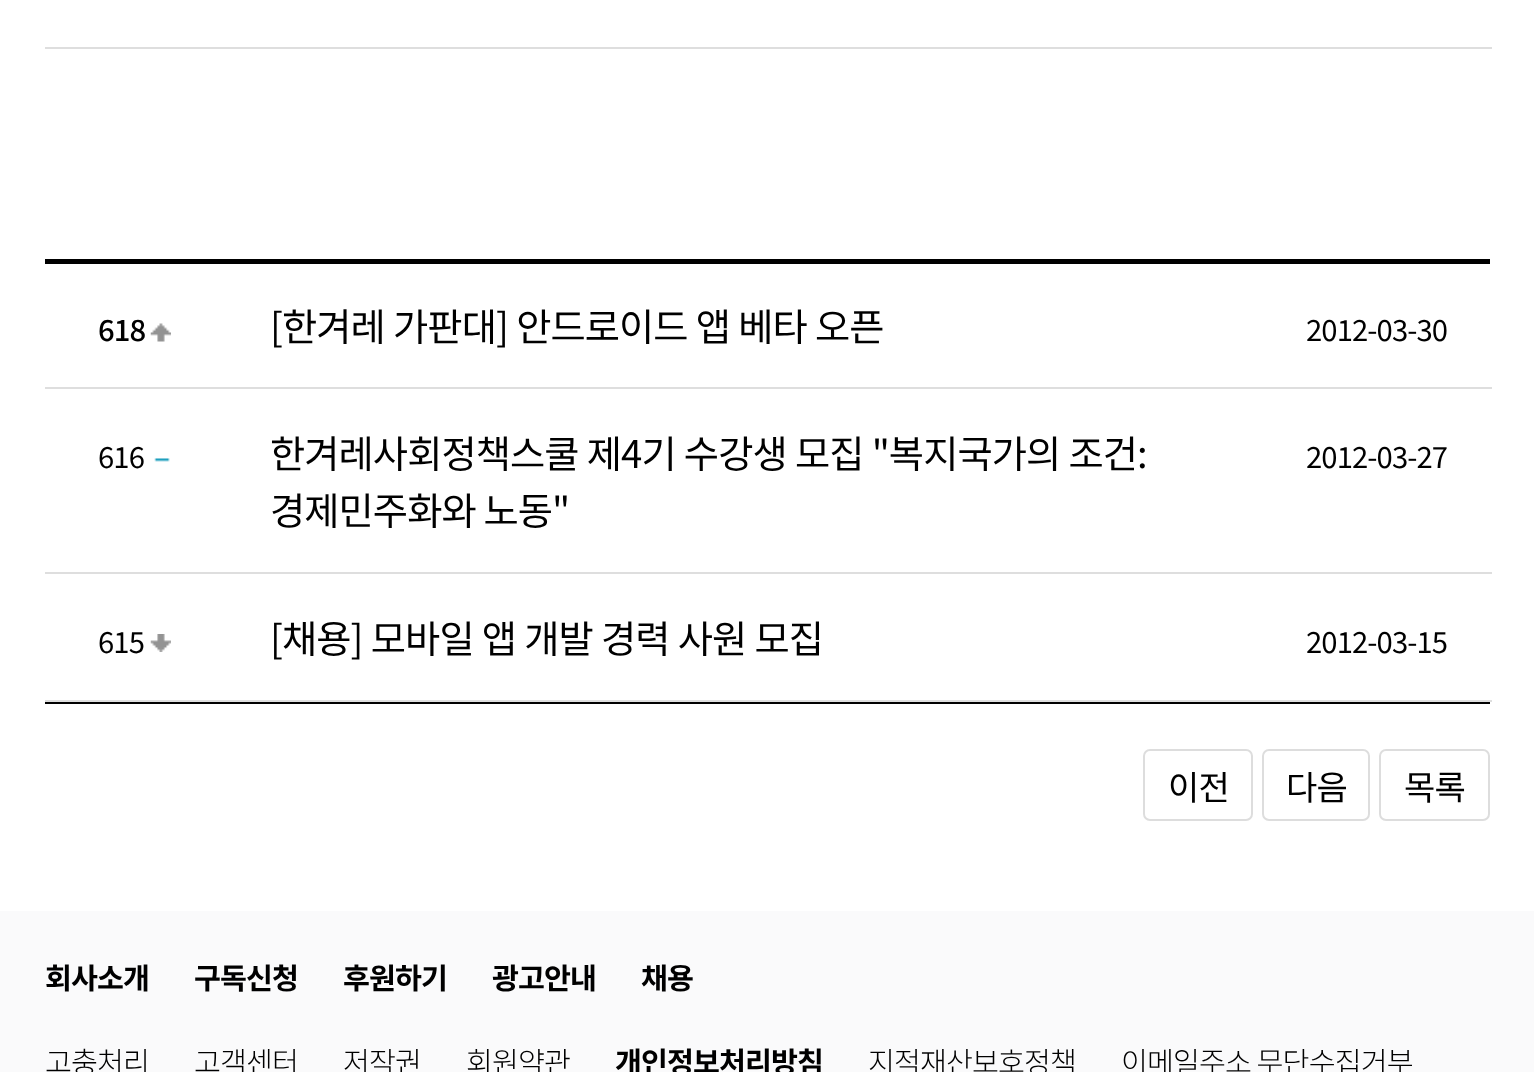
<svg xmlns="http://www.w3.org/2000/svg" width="1534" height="1072">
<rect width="100%" height="100%" fill="#fff"/>
<rect x="45" y="47" width="1447" height="2" fill="#dedede"/>
<rect x="45" y="259" width="1445" height="5" fill="#000"/>
<text x="98" y="341" style="font-family:Noto Sans KR;font-size:29.25px;font-weight:500;letter-spacing:-0.9px;fill:#000">618</text>
<image x="150" y="323" width="21" height="19" href="media/1.png"/>
<text x="270" y="341" word-spacing="0.5" style="font-family:Noto Sans KR;font-size:38.25px;letter-spacing:-0.9px;fill:#000">[한겨레 가판대] 안드로이드 앱 베타 오픈</text>
<rect x="45" y="387" width="1447" height="2" fill="#dedede"/>
<text x="1306" y="341" style="font-family:Noto Sans KR;font-size:29.25px;letter-spacing:-0.9px;fill:#000">2012-03-30</text>
<text x="98" y="468" style="font-family:Noto Sans KR;font-size:29.25px;letter-spacing:-0.9px;fill:#000">616</text>
<image x="154" y="458" width="16" height="4" href="media/2.png"/>
<text x="270" y="468" word-spacing="0.5" style="font-family:Noto Sans KR;font-size:38.25px;letter-spacing:-0.9px;fill:#000">한겨레사회정책스쿨 제4기 수강생 모집 "복지국가의 조건:</text>
<text x="270" y="525" style="font-family:Noto Sans KR;font-size:38.25px;letter-spacing:-0.9px;fill:#000">경제민주화와 노동"</text>
<rect x="45" y="572" width="1447" height="2" fill="#dedede"/>
<text x="1306" y="468" style="font-family:Noto Sans KR;font-size:29.25px;letter-spacing:-0.9px;fill:#000">2012-03-27</text>
<text x="98" y="653" style="font-family:Noto Sans KR;font-size:29.25px;letter-spacing:-0.9px;fill:#000">615</text>
<image x="150" y="634" width="21" height="18" href="media/3.png"/>
<text x="270" y="653" word-spacing="0.5" style="font-family:Noto Sans KR;font-size:38.25px;letter-spacing:-0.9px;fill:#000">[채용] 모바일 앱 개발 경력 사원 모집</text>
<rect x="45" y="700" width="1447" height="2" fill="#dedede"/>
<text x="1306" y="653" style="font-family:Noto Sans KR;font-size:29.25px;letter-spacing:-0.9px;fill:#000">2012-03-15</text>
<rect x="45" y="702" width="1445" height="2" fill="#000"/>
<rect x="1144" y="750" width="108" height="70" rx="6" fill="none" stroke="#ddd" stroke-width="2"/>
<text x="1168" y="800" style="font-family:Noto Sans KR;font-size:34px;letter-spacing:-0.9px;fill:#000">이전</text>
<rect x="1263" y="750" width="106" height="70" rx="6" fill="none" stroke="#ddd" stroke-width="2"/>
<text x="1286" y="800" style="font-family:Noto Sans KR;font-size:34px;letter-spacing:-0.9px;fill:#000">다음</text>
<rect x="1380" y="750" width="109" height="70" rx="6" fill="none" stroke="#ddd" stroke-width="2"/>
<text x="1404" y="800" style="font-family:Noto Sans KR;font-size:34px;letter-spacing:-0.9px;fill:#000">목록</text>
<rect y="911" width="1534" height="161" fill="#fafafb"/>
<text x="45" y="989" style="font-family:Noto Sans KR;font-size:29.25px;font-weight:bold;letter-spacing:-0.9px;fill:#000">회사소개</text>
<text x="194" y="989" style="font-family:Noto Sans KR;font-size:29.25px;font-weight:bold;letter-spacing:-0.9px;fill:#000">구독신청</text>
<text x="343" y="989" style="font-family:Noto Sans KR;font-size:29.25px;font-weight:bold;letter-spacing:-0.9px;fill:#000">후원하기</text>
<text x="492" y="989" style="font-family:Noto Sans KR;font-size:29.25px;font-weight:bold;letter-spacing:-0.9px;fill:#000">광고안내</text>
<text x="641" y="989" style="font-family:Noto Sans KR;font-size:29.25px;font-weight:bold;letter-spacing:-0.9px;fill:#000">채용</text>
<text x="45" y="1073" style="font-family:Noto Sans KR;font-size:29.25px;font-weight:300;letter-spacing:-0.9px;fill:#000">고충처리</text>
<text x="194" y="1073" style="font-family:Noto Sans KR;font-size:29.25px;font-weight:300;letter-spacing:-0.9px;fill:#000">고객센터</text>
<text x="343" y="1073" style="font-family:Noto Sans KR;font-size:29.25px;font-weight:300;letter-spacing:-0.9px;fill:#000">저작권</text>
<text x="466" y="1073" style="font-family:Noto Sans KR;font-size:29.25px;font-weight:300;letter-spacing:-0.9px;fill:#000">회원약관</text>
<text x="615" y="1073" style="font-family:Noto Sans KR;font-size:29.25px;font-weight:bold;letter-spacing:-0.9px;fill:#000">개인정보처리방침</text>
<text x="868" y="1073" style="font-family:Noto Sans KR;font-size:29.25px;font-weight:300;letter-spacing:-0.9px;fill:#000">지적재산보호정책</text>
<text x="1121" y="1073" style="font-family:Noto Sans KR;font-size:29.25px;font-weight:300;letter-spacing:-0.9px;fill:#000">이메일주소 무단수집거부</text>
</svg>
